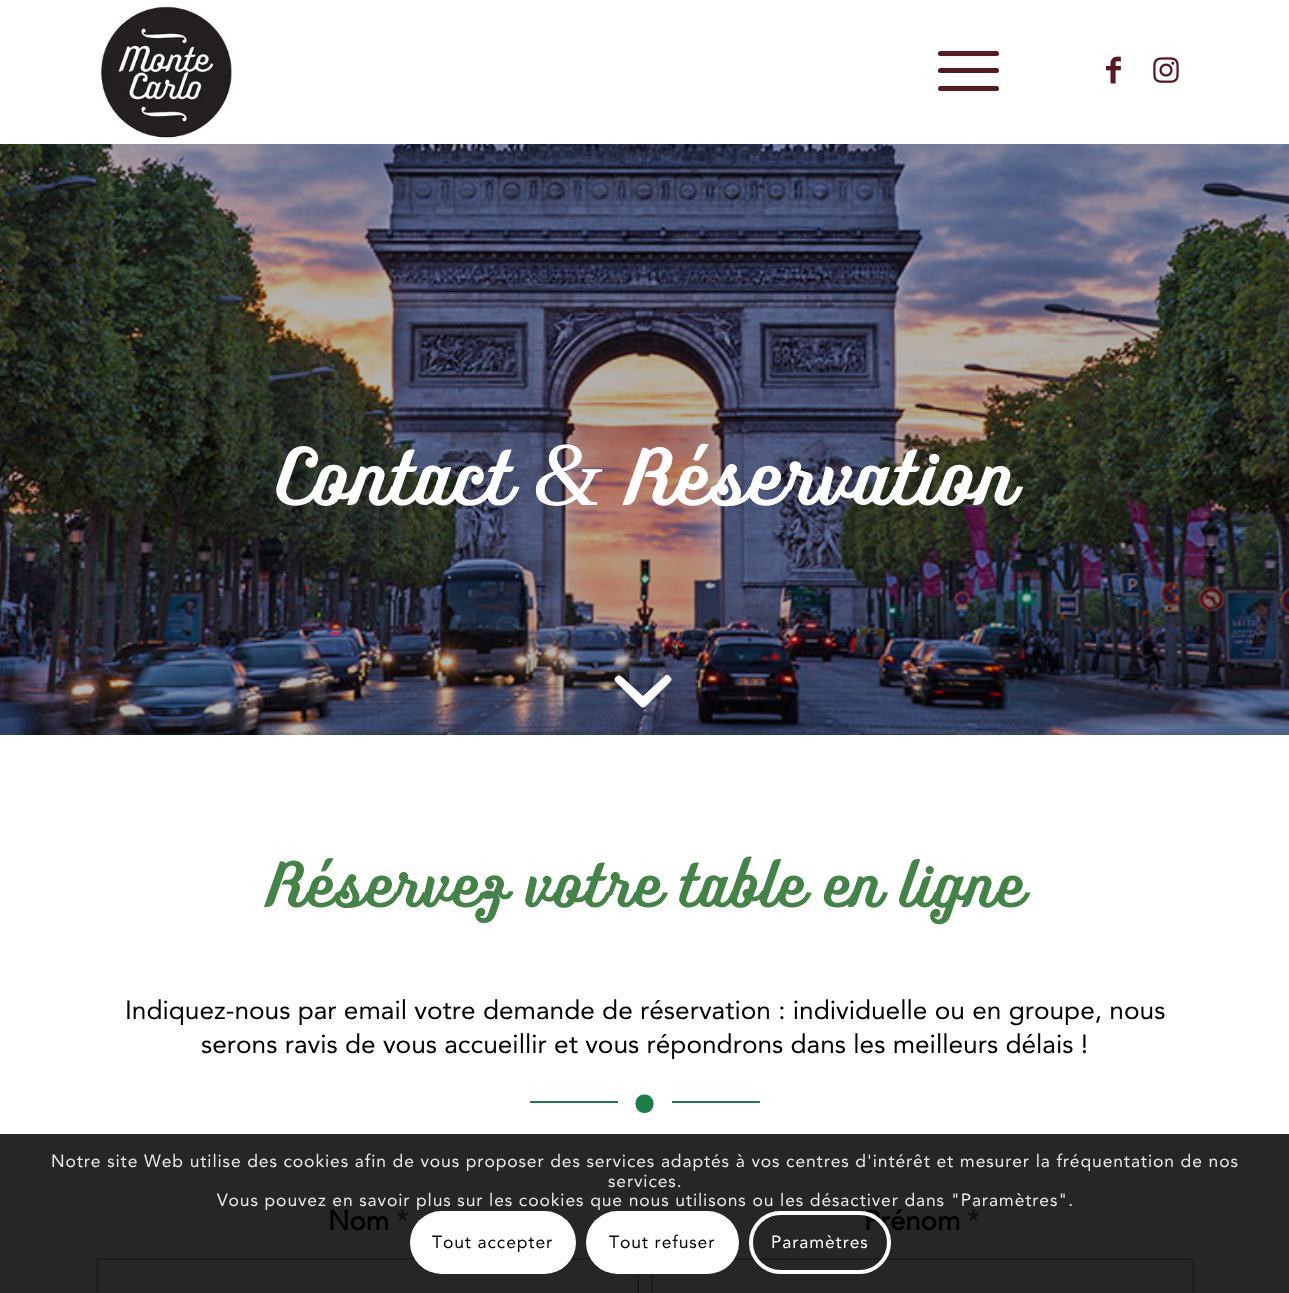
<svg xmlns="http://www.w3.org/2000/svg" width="1289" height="1293">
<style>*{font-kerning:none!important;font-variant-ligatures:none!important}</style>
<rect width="100%" height="100%" fill="#fff"/>
<rect y="1134" width="1289" height="159" fill="#262626"/>
<image x="101" y="6" width="131" height="132" href="media/1.png"/>
<rect x="938" y="68" width="61" height="5" rx="2.5" fill="#591921"/>
<rect x="938" y="51" width="61" height="5" rx="2.5" fill="#591921"/>
<rect x="938" y="86" width="61" height="5" rx="2.5" fill="#591921"/>
<image x="1106" y="56" width="15" height="28" href="media/2.png"/>
<image x="1153" y="57" width="26" height="26" href="media/3.png"/>
<image x="0" y="144" width="1289" height="591" href="media/4.png"/>
<text x="275" y="505" style="font-family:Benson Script;font-size:70px;font-weight:bold;letter-spacing:1.75px;fill:#fff">Contact</text>
<text x="532" y="505" style="font-family:Liberation Serif;font-size:91px;font-style:italic;letter-spacing:1.75px;fill:#fff">&amp;</text>
<text x="625" y="505" style="font-family:Benson Script;font-size:70px;font-weight:bold;letter-spacing:1.75px;fill:#fff">Réservation</text>
<path d="M664 677c2-3 4-3 6 0c2 1 2 3 0 5l-24 24c-2 2-4 2-6 0l-24-24c-2-2-2-4 0-5c2-2 4-2 6 0l21 19z" fill="#fff"/>
<text x="266" y="907" style="font-family:Benson Script;font-size:56px;font-weight:bold;letter-spacing:1.75px;fill:#448347">Réservez votre table en ligne</text>
<text x="125" y="1019" style="font-family:Avenir;font-size:26.25px;fill:#000">Indiquez-nous par email votre demande de réservation : individuelle ou en groupe, nous</text>
<text x="201" y="1053" style="font-family:Avenir;font-size:26.25px;fill:#000">serons ravis de vous accueillir et vous répondrons dans les meilleurs délais !</text>
<rect x="530" y="1101" width="88" height="2" fill="#1b7d4a"/>
<path d="M644.5 1094.5c12 0 12 18.5 0 18.5c-12 0-12-18.5 0-18.5z" fill="#1b7d4a"/>
<rect x="672" y="1101" width="88" height="2" fill="#1b7d4a"/>
<text x="328" y="1230" style="font-family:Avenir;font-size:27.5px;font-weight:bold;fill:#000">Nom</text>
<text x="396" y="1230" style="font-family:Avenir;font-size:27.5px;font-weight:bold;fill:#0a140b">*</text>
<rect x="97" y="1259" width="541" height="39" rx="3" fill="none" stroke="#1d1d1d" stroke-width="2"/>
<text x="864" y="1230" style="font-family:Avenir;font-size:27.5px;font-weight:bold;fill:#000">Prénom</text>
<text x="967" y="1230" style="font-family:Avenir;font-size:27.5px;font-weight:bold;fill:#0a140b">*</text>
<rect x="652" y="1259" width="541" height="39" rx="3" fill="none" stroke="#1d1d1d" stroke-width="2"/>
<text x="51" y="1167" style="font-family:Avenir;font-size:17.5px;letter-spacing:0.88px;fill:#e9e9e9">Notre site Web utilise des cookies afin de vous proposer des services adaptés à vos centres d'intérêt et mesurer la fréquentation de nos</text>
<text x="608" y="1187" style="font-family:Avenir;font-size:17.5px;letter-spacing:0.88px;fill:#e9e9e9">services.</text>
<text x="217" y="1206" style="font-family:Avenir;font-size:17.5px;letter-spacing:0.88px;fill:#e9e9e9">Vous pouvez en savoir plus sur les cookies que nous utilisons ou les désactiver dans "Paramètres".</text>
<rect x="410" y="1211" width="166" height="63" rx="31.5" fill="#fff"/>
<text x="432" y="1248" style="font-family:Avenir;font-size:17.5px;letter-spacing:0.88px;fill:#000">Tout accepter</text>
<rect x="586" y="1211" width="153" height="63" rx="31.5" fill="#fff"/>
<text x="609" y="1248" style="font-family:Avenir;font-size:17.5px;letter-spacing:0.88px;fill:#000">Tout refuser</text>
<rect x="751" y="1213" width="138" height="59" rx="29.5" fill="none" stroke="#fff" stroke-width="4"/>
<text x="771" y="1248" style="font-family:Avenir;font-size:17.5px;letter-spacing:0.88px;fill:#fff">Paramètres</text>
</svg>
